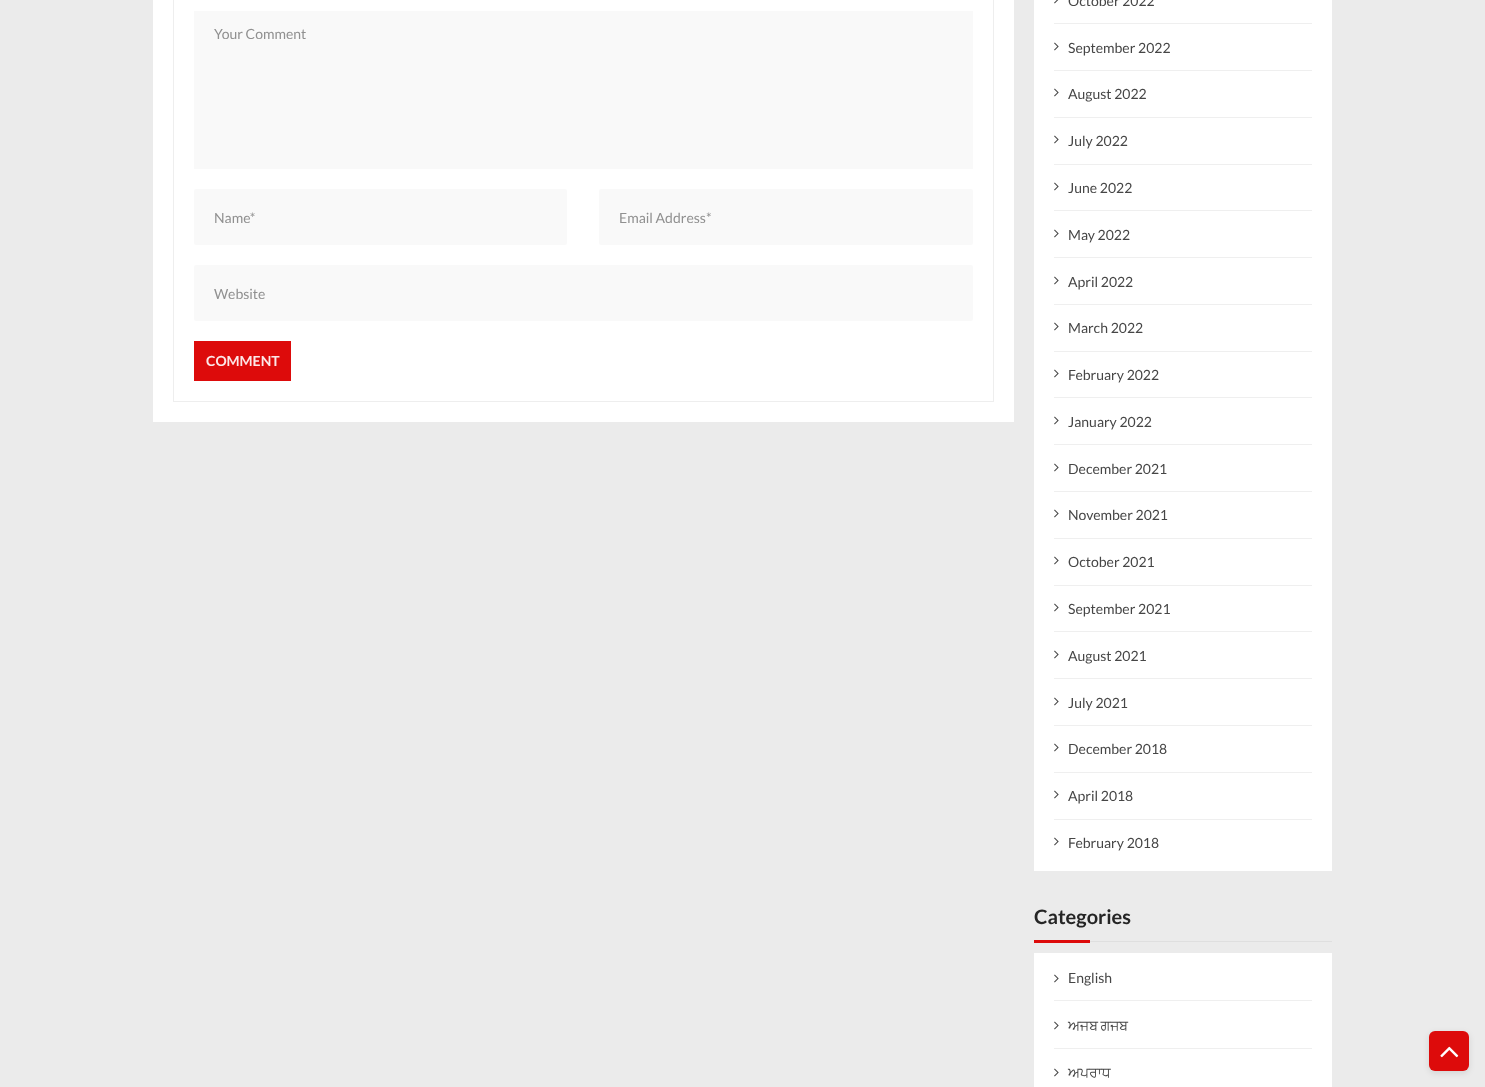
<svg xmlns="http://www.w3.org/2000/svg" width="1485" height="1087">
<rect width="100%" height="100%" fill="#ebebeb"/>
<rect x="153" width="861" height="422" fill="#fff"/>
<rect x="173.5" y="-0.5" width="820" height="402" fill="none" stroke="#eee"/>
<rect x="194" y="11" width="779" height="158" fill="#f9f9f9"/>
<text x="214" y="39" style="font-family:Lato;font-size:14px;fill:#909090">Your Comment</text>
<rect x="194" y="189" width="373" height="56" rx="2" fill="#f9f9f9"/>
<text x="214" y="223" style="font-family:Lato;font-size:14px;fill:#909090">Name*</text>
<rect x="599" y="189" width="374" height="56" rx="2" fill="#f9f9f9"/>
<text x="619" y="223" style="font-family:Lato;font-size:14px;fill:#909090">Email Address*</text>
<rect x="194" y="265" width="779" height="56" rx="2" fill="#f9f9f9"/>
<text x="214" y="299" style="font-family:Lato;font-size:14px;fill:#909090">Website</text>
<rect x="194" y="341" width="97" height="40" fill="#dd0b0b"/>
<text x="206" y="366" style="font-family:Lato;font-size:14px;font-weight:bold;fill:#fce7e7">COMMENT</text>
<rect x="1034" width="298" height="871" fill="#fff"/>
<rect x="1054" y="23" width="258" height="1" fill="#efefef"/>
<image x="1054" y="0" width="5" height="4" href="media/1.png"/>
<text x="1068" y="6" style="font-family:Lato;font-size:14px;fill:#464646">October 2022</text>
<rect x="1054" y="70" width="258" height="1" fill="#efefef"/>
<image x="1054" y="42" width="5" height="9" href="media/2.png"/>
<text x="1068" y="53" style="font-family:Lato;font-size:14px;fill:#464646">September 2022</text>
<rect x="1054" y="117" width="258" height="1" fill="#efefef"/>
<image x="1054" y="88" width="5" height="9" href="media/2.png"/>
<text x="1068" y="99" style="font-family:Lato;font-size:14px;fill:#464646">August 2022</text>
<rect x="1054" y="164" width="258" height="1" fill="#efefef"/>
<image x="1054" y="135" width="5" height="9" href="media/2.png"/>
<text x="1068" y="146" style="font-family:Lato;font-size:14px;fill:#464646">July 2022</text>
<rect x="1054" y="210" width="258" height="1" fill="#efefef"/>
<image x="1054" y="182" width="5" height="9" href="media/2.png"/>
<text x="1068" y="193" style="font-family:Lato;font-size:14px;fill:#464646">June 2022</text>
<rect x="1054" y="257" width="258" height="1" fill="#efefef"/>
<image x="1054" y="229" width="5" height="9" href="media/2.png"/>
<text x="1068" y="240" style="font-family:Lato;font-size:14px;fill:#464646">May 2022</text>
<rect x="1054" y="304" width="258" height="1" fill="#efefef"/>
<image x="1054" y="276" width="5" height="9" href="media/2.png"/>
<text x="1068" y="287" style="font-family:Lato;font-size:14px;fill:#464646">April 2022</text>
<rect x="1054" y="351" width="258" height="1" fill="#efefef"/>
<image x="1054" y="322" width="5" height="9" href="media/2.png"/>
<text x="1068" y="333" style="font-family:Lato;font-size:14px;fill:#464646">March 2022</text>
<rect x="1054" y="397" width="258" height="1" fill="#efefef"/>
<image x="1054" y="369" width="5" height="9" href="media/2.png"/>
<text x="1068" y="380" style="font-family:Lato;font-size:14px;fill:#464646">February 2022</text>
<rect x="1054" y="444" width="258" height="1" fill="#efefef"/>
<image x="1054" y="416" width="5" height="9" href="media/2.png"/>
<text x="1068" y="427" style="font-family:Lato;font-size:14px;fill:#464646">January 2022</text>
<rect x="1054" y="491" width="258" height="1" fill="#efefef"/>
<image x="1054" y="463" width="5" height="9" href="media/2.png"/>
<text x="1068" y="474" style="font-family:Lato;font-size:14px;fill:#464646">December 2021</text>
<rect x="1054" y="538" width="258" height="1" fill="#efefef"/>
<image x="1054" y="509" width="5" height="9" href="media/2.png"/>
<text x="1068" y="520" style="font-family:Lato;font-size:14px;fill:#464646">November 2021</text>
<rect x="1054" y="585" width="258" height="1" fill="#efefef"/>
<image x="1054" y="556" width="5" height="9" href="media/2.png"/>
<text x="1068" y="567" style="font-family:Lato;font-size:14px;fill:#464646">October 2021</text>
<rect x="1054" y="631" width="258" height="1" fill="#efefef"/>
<image x="1054" y="603" width="5" height="9" href="media/2.png"/>
<text x="1068" y="614" style="font-family:Lato;font-size:14px;fill:#464646">September 2021</text>
<rect x="1054" y="678" width="258" height="1" fill="#efefef"/>
<image x="1054" y="650" width="5" height="9" href="media/2.png"/>
<text x="1068" y="661" style="font-family:Lato;font-size:14px;fill:#464646">August 2021</text>
<rect x="1054" y="725" width="258" height="1" fill="#efefef"/>
<image x="1054" y="697" width="5" height="9" href="media/2.png"/>
<text x="1068" y="708" style="font-family:Lato;font-size:14px;fill:#464646">July 2021</text>
<rect x="1054" y="772" width="258" height="1" fill="#efefef"/>
<image x="1054" y="743" width="5" height="9" href="media/2.png"/>
<text x="1068" y="754" style="font-family:Lato;font-size:14px;fill:#464646">December 2018</text>
<rect x="1054" y="819" width="258" height="1" fill="#efefef"/>
<image x="1054" y="790" width="5" height="9" href="media/2.png"/>
<text x="1068" y="801" style="font-family:Lato;font-size:14px;fill:#464646">April 2018</text>
<image x="1054" y="837" width="5" height="9" href="media/2.png"/>
<text x="1068" y="848" style="font-family:Lato;font-size:14px;fill:#464646">February 2018</text>
<text x="1034" y="924" style="font-family:Lato;font-size:20px;font-weight:bold;fill:#252525">Categories</text>
<rect x="1034" y="940" width="56" height="3" fill="#dd0b0b"/>
<rect x="1090" y="941" width="242" height="1" fill="#dfdfdf"/>
<rect x="1034" y="953" width="298" height="134" fill="#fff"/>
<rect x="1054" y="1000" width="258" height="1" fill="#efefef"/>
<image x="1054" y="974" width="5" height="9" href="media/2.png"/>
<text x="1068" y="983" style="font-family:Lato;font-size:14px;fill:#464646">English</text>
<rect x="1054" y="1048" width="258" height="1" fill="#efefef"/>
<image x="1054" y="1021" width="5" height="9" href="media/2.png"/>
<text x="1068" y="1030" word-spacing="-1" style="font-family:FreeSans;font-size:14px;fill:#464646">ਅਜਬ ਗਜਬ</text>
<image x="1054" y="1068" width="5" height="9" href="media/2.png"/>
<text x="1068" y="1077" style="font-family:FreeSans;font-size:14px;fill:#464646">ਅਪਰਾਧ</text>
<rect x="1429" y="1033" width="40" height="40" rx="6" fill="#0000001a" filter="blur(3px)"/>
<rect x="1429" y="1031" width="40" height="40" rx="6" fill="#dd0b0b"/>
<image x="1440" y="1046" width="19" height="12" href="media/3.png"/>
</svg>
